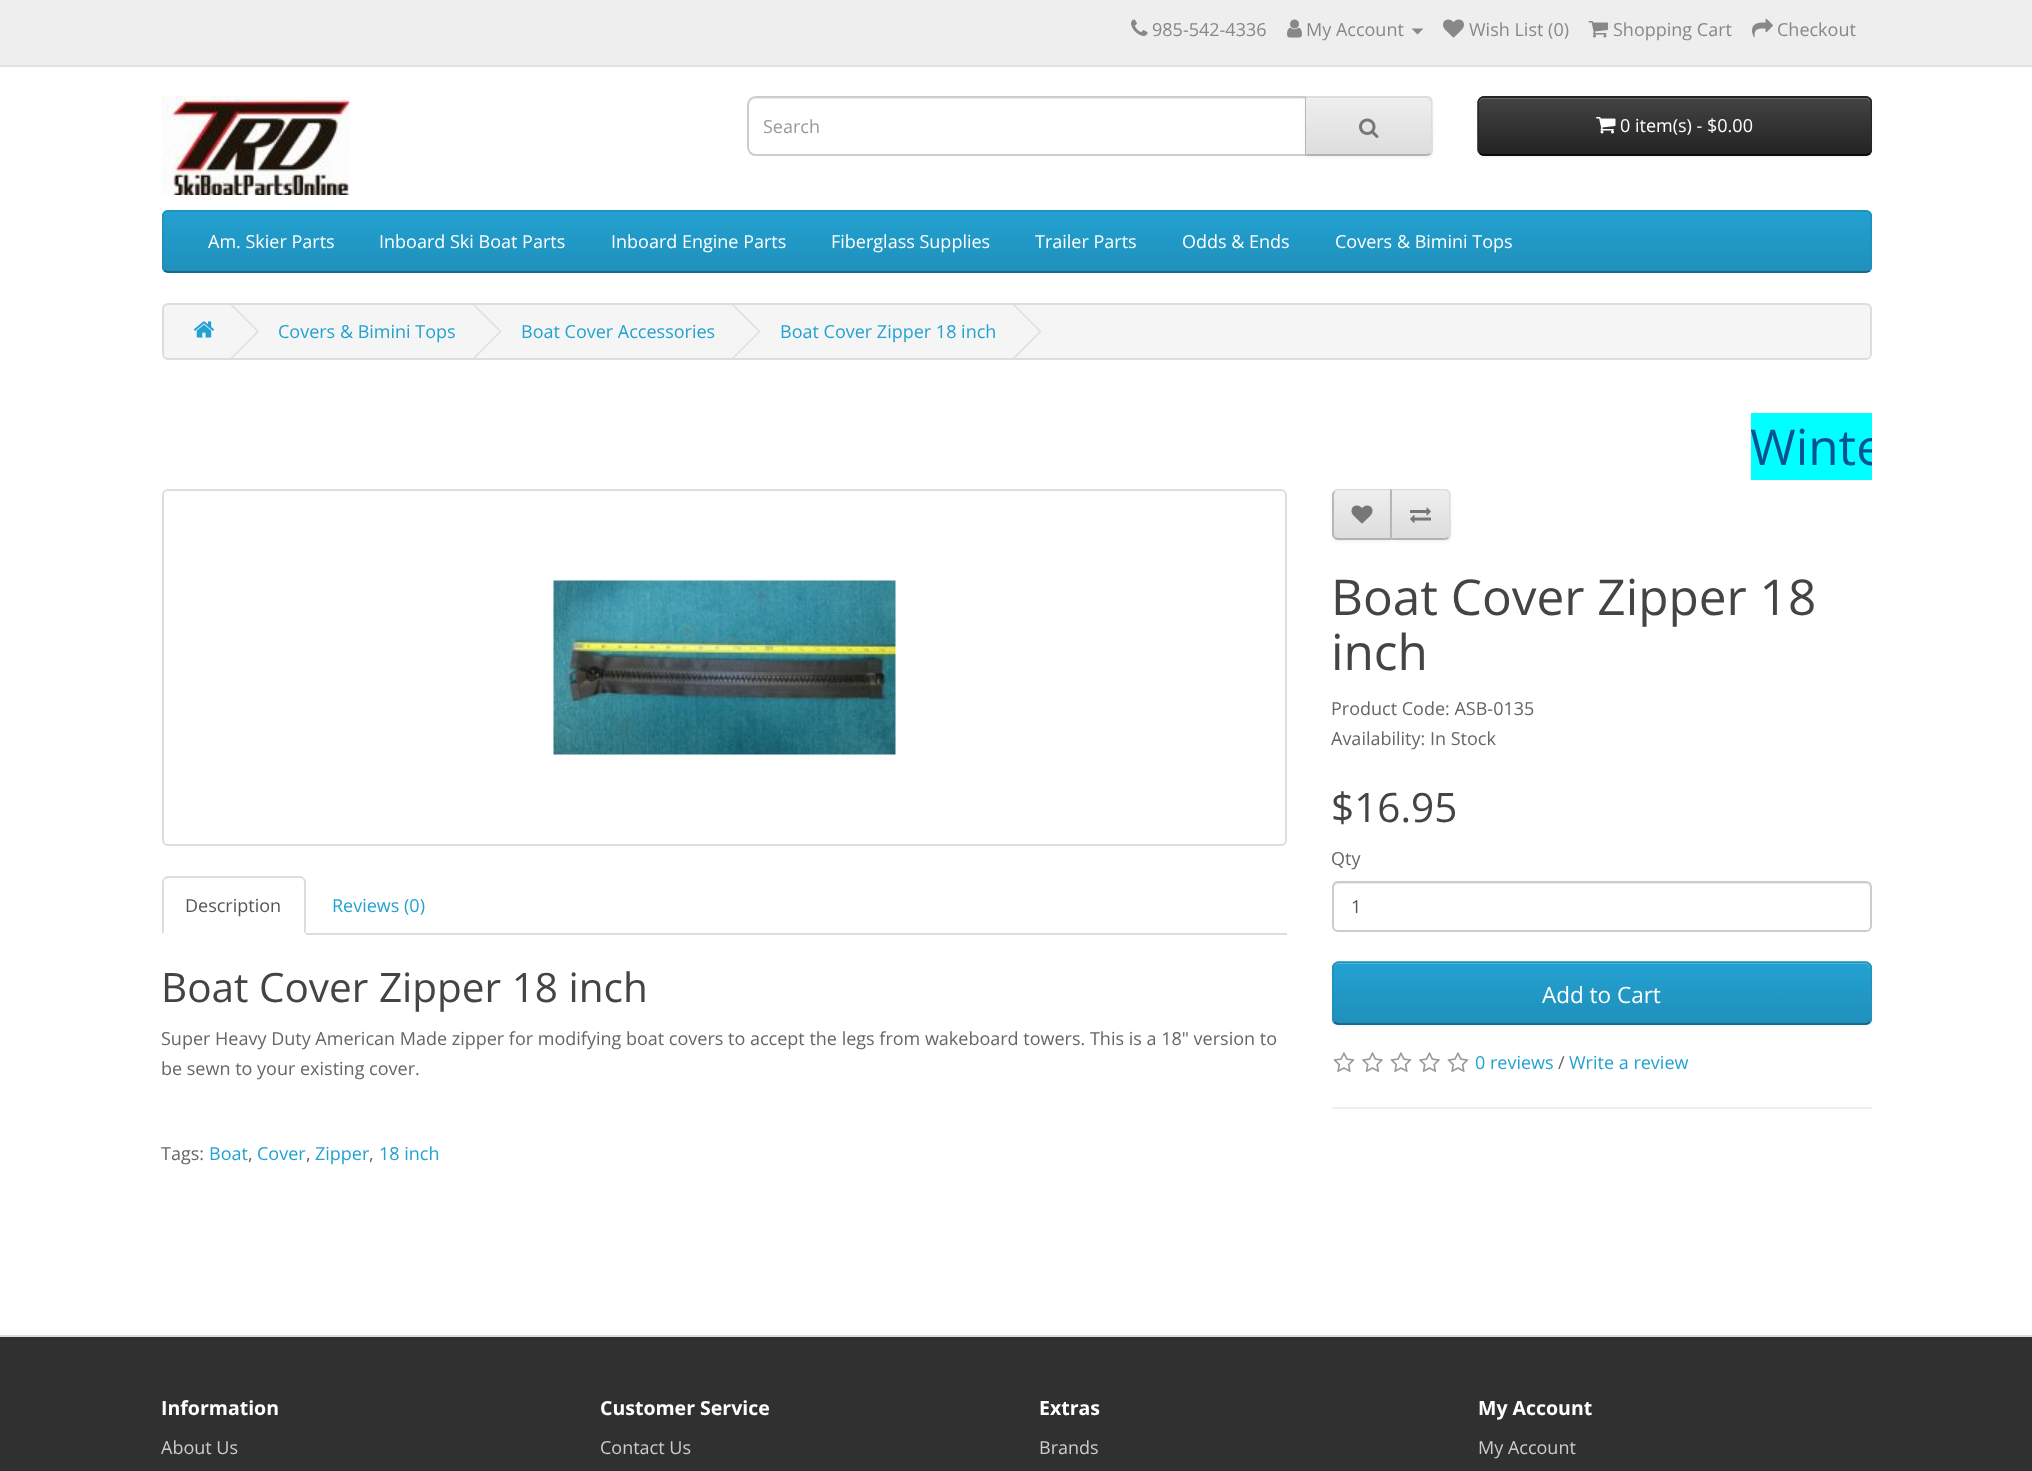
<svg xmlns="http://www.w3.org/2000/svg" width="2032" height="1471">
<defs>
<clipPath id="clip1"><rect x="764" y="114" width="526" height="26"/></clipPath>
<clipPath id="clip2"><path d="M1305 96h122c3.5 0 6 2.5 6 6v48c0 3.5-2.5 6-6 6h-122z"/></clipPath>
<linearGradient id="g1" gradientUnits="userSpaceOnUse" x1="1369" y1="98" x2="1369" y2="155"><stop offset="0" stop-color="#eee"/><stop offset="1" stop-color="#ddd"/></linearGradient>
<clipPath id="clip3"><rect x="1478" y="96" width="394" height="60" rx="6"/></clipPath>
<linearGradient id="g2" gradientUnits="userSpaceOnUse" x1="1675" y1="97" x2="1675" y2="155"><stop offset="0" stop-color="#444"/><stop offset="1" stop-color="#222"/></linearGradient>
<clipPath id="clip4"><rect x="162" y="210" width="1710" height="63" rx="6"/></clipPath>
<linearGradient id="g3" gradientUnits="userSpaceOnUse" x1="1017" y1="211" x2="1017" y2="272"><stop offset="0" stop-color="#23a1d1"/><stop offset="1" stop-color="#1f90bb"/></linearGradient>
<clipPath id="clip5"><rect x="162" y="390" width="1710" height="99"/></clipPath>
<clipPath id="clip6"><path d="M1338 489h54v51h-54c-3.5 0-6-2.5-6-6v-39c0-3.5 2.5-6 6-6z"/></clipPath>
<linearGradient id="g4" gradientUnits="userSpaceOnUse" x1="1362" y1="491" x2="1362" y2="539"><stop offset="0" stop-color="#eee"/><stop offset="1" stop-color="#ddd"/></linearGradient>
<clipPath id="clip7"><path d="M1391 489h54c3.5 0 6 2.5 6 6v39c0 3.5-2.5 6-6 6h-54z"/></clipPath>
<linearGradient id="g5" gradientUnits="userSpaceOnUse" x1="1421" y1="491" x2="1421" y2="539"><stop offset="0" stop-color="#eee"/><stop offset="1" stop-color="#ddd"/></linearGradient>
<clipPath id="clip8"><rect x="1332" y="962" width="540" height="63" rx="6"/></clipPath>
<linearGradient id="g6" gradientUnits="userSpaceOnUse" x1="1602" y1="963" x2="1602" y2="1023"><stop offset="0" stop-color="#23a1d1"/><stop offset="1" stop-color="#1f90bb"/></linearGradient>
</defs>
<rect width="100%" height="100%" fill="#fff"/>
<rect width="2032" height="65" fill="#eee"/>
<rect y="65" width="2032" height="2" fill="#e2e2e2"/>
<image x="1131" y="19" width="17" height="17" href="media/1.png"/>
<text x="1152" y="36" style="font-family:Open Sans;font-size:18px;fill:#888">985-542-4336</text>
<image x="1287" y="19" width="15" height="19" href="media/2.png"/>
<text x="1306" y="36" style="font-family:Open Sans;font-size:18px;fill:#888">My Account</text>
<path d="M1411.5 28.5h12l-6 6z" fill="#888"/>
<image x="1443" y="19" width="21" height="19" href="media/3.png"/>
<text x="1469" y="36" style="font-family:Open Sans;font-size:18px;fill:#888">Wish List (0)</text>
<image x="1588" y="21" width="20" height="17" href="media/4.png"/>
<text x="1613" y="36" style="font-family:Open Sans;font-size:18px;fill:#888">Shopping Cart</text>
<image x="1752" y="18" width="21" height="20" href="media/5.png"/>
<text x="1777" y="36" style="font-family:Open Sans;font-size:18px;fill:#888">Checkout</text>
<image x="162" y="96" width="188" height="99" href="media/6.png"/>
<path d="M756 99h549v-1h-548c-2 0-4 1-6 2c2 0 3-1 5-1z" fill="#ececec"/>
<path d="M756 97h550v58h-550c-4.5 0-8-3.5-8-8v-42c0-4.5 3.5-8 8-8z" fill="none" stroke="#ccc" stroke-width="2"/>
<g clip-path="url(#clip1)">
<text x="763" y="133" style="font-family:Open Sans;font-size:18px;fill:#999">Search</text>
</g>
<rect x="1305" y="98" width="128" height="60" rx="6" fill="#0000000d" filter="blur(1.5px)"/>
<path d="M1305 96h122c3.5 0 6 2.5 6 6v48c0 3.5-2.5 6-6 6h-122z" fill="#e7e7e7"/>
<g clip-path="url(#clip2)">
<rect x="1306" y="98" width="127" height="57" fill="url(#g1)"/>
</g>
<path d="M1307 98v1h119c3 0 5 2 5 5c0-3-2-6-5-6z" fill="#f1f1f1"/>
<path d="M1305 96l2 2h119c1 0 3 0 3 1l2-1c-1-1-3-2-5-2z" fill="#ddd"/>
<path d="M1431 98c1 1 1 3 1 4v48c0 1 0 3-1 4l-2-1c1-1 2-2 2-3v-48c0-1-1-2-2-3z" fill="#ddd"/>
<path d="M1426 156c2 0 4-1 5-2l-2-1c0 1-2 1-3 1h-119l-2 2z" fill="#b3b3b3"/>
<path d="M1305 96v60l2-2h-1v-56h1z" fill="#b7b7b7"/>
<image x="1359" y="118" width="20" height="20" href="media/7.png"/>
<rect x="1478" y="98" width="394" height="60" rx="6" fill="#0000000d" filter="blur(1.5px)"/>
<rect x="1478" y="96" width="394" height="60" rx="6" fill="#363636"/>
<g clip-path="url(#clip3)">
<rect x="1478" y="98" width="394" height="57" fill="url(#g2)"/>
</g>
<path d="M1484 99h382c2 0 4 2 4 5v49c1-1 1-2 1-3v-47c0-3-2-5-5-5h-382c-3 0-5 2-5 5v1c0-3 2-5 5-5z" fill="#ffffff33"/>
<path d="M1869.5 153.5c-1 1-2 1.5-3.5 1.5h-382.5c-1.5 0-2.5-.5-3.5-1.5" fill="none" stroke="#000" stroke-width="1.5"/>
<path d="M1480 153.5c-1-1-2-2-2-3.5v-48c0-1.5 1-2.5 2-3.5c1-1 2-1.5 3.5-1.5h382.5c1.5 0 2.5 .5 3.5 1.5c1 1 1.5 2 1.5 3.5v48c0 1.5-.5 2.5-1.5 3.5" fill="none" stroke="#222" stroke-width="1.5"/>
<image x="1596" y="117" width="20" height="17" href="media/8.png"/>
<text x="1620" y="132" style="font-family:Open Sans;font-size:18px;fill:#fff">0 item(s) - $0.00</text>
<rect x="162" y="210" width="1710" height="63" rx="6" fill="#229ac8"/>
<g clip-path="url(#clip4)">
<rect x="162" y="212" width="1710" height="60" fill="url(#g3)"/>
</g>
<path d="M1869.5 270.5c-1 1-2 1.5-3.5 1.5h-1698c-1.5 0-2.5-.5-3.5-1.5" fill="none" stroke="#145e7a" stroke-width="1.5"/>
<path d="M164.5 270.5c-3-2.5-1.5-9.5-1.5-12v-34c0-4-2-13.5 5-13.5h1698c7 0 5 9.5 5 13.5v34c0 2.5 1.5 9.5-1.5 12" fill="none" stroke="#1f90bb" stroke-width="1.5"/>
<text x="208" y="248" style="font-family:Open Sans;font-size:18px;fill:#fff">Am. Skier Parts</text>
<text x="379" y="248" style="font-family:Open Sans;font-size:18px;fill:#fff">Inboard Ski Boat Parts</text>
<text x="611" y="248" style="font-family:Open Sans;font-size:18px;fill:#fff">Inboard Engine Parts</text>
<text x="831" y="248" style="font-family:Open Sans;font-size:18px;fill:#fff">Fiberglass Supplies</text>
<text x="1035" y="248" style="font-family:Open Sans;font-size:18px;fill:#fff">Trailer Parts</text>
<text x="1182" y="248" style="font-family:Open Sans;font-size:18px;fill:#fff">Odds &amp; Ends</text>
<text x="1335" y="248" style="font-family:Open Sans;font-size:18px;fill:#fff">Covers &amp; Bimini Tops</text>
<rect x="163" y="304" width="1708" height="55" rx="5" fill="#f5f5f5" stroke="#ddd" stroke-width="2"/>
<image x="193" y="321" width="21" height="17" href="media/9.png"/>
<path d="M230.5 305l1-1l27.5 27.5l-1 1z" fill="#ddd"/>
<path d="M230.5 358l27.5-27.5l1 1l-27.5 27.5z" fill="#ddd"/>
<text x="278" y="338" style="font-family:Open Sans;font-size:18px;fill:#23a1d1">Covers &amp; Bimini Tops</text>
<path d="M473 305l1-1l27.5 27.5l-1 1z" fill="#ddd"/>
<path d="M473 358l27.5-27.5l1 1l-27.5 27.5z" fill="#ddd"/>
<text x="521" y="338" style="font-family:Open Sans;font-size:18px;fill:#23a1d1">Boat Cover Accessories</text>
<path d="M732 305l1-1l27.5 27.5l-1 1z" fill="#ddd"/>
<path d="M732 358l27.5-27.5l1 1l-27.5 27.5z" fill="#ddd"/>
<text x="780" y="338" style="font-family:Open Sans;font-size:18px;fill:#23a1d1">Boat Cover Zipper 18 inch</text>
<path d="M1013 305l1-1l27.5 27.5l-1 1z" fill="#ddd"/>
<path d="M1013 358l27.5-27.5l1 1l-27.5 27.5z" fill="#ddd"/>
<rect x="1751" y="413" width="121" height="67" fill="#0ff"/>
<g clip-path="url(#clip5)">
<text x="1750" y="465" style="font-family:Open Sans;font-size:49.5px;fill:#085294">Winte</text>
</g>
<rect x="163" y="490" width="1123" height="355" rx="5" fill="none" stroke="#ddd" stroke-width="2"/>
<image x="553" y="579" width="343" height="181" href="media/10.png"/>
<rect x="306" y="933" width="981" height="2" fill="#ddd"/>
<path d="M168 876c-2 0-3 1-4 2l1 1l3-1h110h22l3 1l1-1c-1-1-2-2-4-2z" fill="#ddd"/>
<path d="M306 934v-52c0-2-1-3-2-4l-1 1l1 3v50z" fill="#ddd"/>
<path d="M162 882v52l2-2v-50l1-3l-1-1c-1 1-2 2-2 4z" fill="#ddd"/>
<text x="185" y="912" style="font-family:Open Sans;font-size:18px;fill:#555">Description</text>
<text x="332" y="912" style="font-family:Open Sans;font-size:18px;fill:#23a1d1">Reviews (0)</text>
<text x="161" y="1002" style="font-family:Open Sans;font-size:40.5px;fill:#444">Boat Cover Zipper 18 inch</text>
<text x="161" y="1045" style="font-family:Open Sans;font-size:18px;fill:#666">Super Heavy Duty American Made zipper for modifying boat covers to accept the legs from wakeboard towers. This is a 18" version to</text>
<text x="161" y="1075" style="font-family:Open Sans;font-size:18px;fill:#666">be sewn to your existing cover.</text>
<rect x="1332" y="491" width="60" height="51" rx="6" fill="#0000000d" filter="blur(1.5px)"/>
<path d="M1338 489h54v51h-54c-3.5 0-6-2.5-6-6v-39c0-3.5 2.5-6 6-6z" fill="#e7e7e7"/>
<g clip-path="url(#clip6)">
<rect x="1332" y="491" width="58" height="48" fill="url(#g4)"/>
</g>
<path d="M1338 492h52v47h1v-48h-52c-3 0-5 2-5 5c0-2 2-4 4-4z" fill="#ffffff33"/>
<path d="M1338 489c-2 0-3 1-4 2l1 1l3-2h52v1l2-2z" fill="#ddd"/>
<path d="M1392 540l-2-2h-52l-3-1l-1 1c1 1 2 2 4 2z" fill="#b3b3b3"/>
<path d="M1332 495v39c0 2 1 3 2 4l1-1l-1-3v-32c0-4-1-7 1-10l-1-1c-1 1-2 3-2 4z" fill="#b7b7b7"/>
<image x="1351" y="505" width="22" height="19" href="media/11.png"/>
<rect x="1391" y="491" width="60" height="51" rx="6" fill="#0000000d" filter="blur(1.5px)"/>
<path d="M1391 489h54c3.5 0 6 2.5 6 6v39c0 3.5-2.5 6-6 6h-54z" fill="#e7e7e7"/>
<g clip-path="url(#clip7)">
<rect x="1391" y="491" width="60" height="48" fill="url(#g5)"/>
</g>
<path d="M1392 492h52c3 0 5 2 5 4c0-3-2-5-5-5h-52z" fill="#f1f1f1"/>
<path d="M1392 490h53l3 2l1-1c-1-1-3-2-5-2h-54z" fill="#ddd"/>
<path d="M1449 491c1 1 1 3 1 4v39c0 1 0 3-1 4l-2-1c1-1 2-2 2-3v-39c0-1 0-2-1-3z" fill="#ddd"/>
<path d="M1390 540h54c2 0 4-1 5-2l-2-1c0 1-2 1-3 1h-52z" fill="#b3b3b3"/>
<path d="M1390 540l2-2v-48l-2-1z" fill="#b7b7b7"/>
<image x="1410" y="507" width="21" height="16" href="media/12.png"/>
<text x="1331" y="615" style="font-family:Open Sans;font-size:49.5px;fill:#444">Boat Cover Zipper 18</text>
<text x="1331" y="670" style="font-family:Open Sans;font-size:49.5px;fill:#444">inch</text>
<text x="1331" y="715" style="font-family:Open Sans;font-size:18px;fill:#666">Product Code: ASB-0135</text>
<text x="1331" y="745" style="font-family:Open Sans;font-size:18px;fill:#666">Availability: In Stock</text>
<text x="1331" y="822" style="font-family:Open Sans;font-size:40.5px;fill:#444">$16.95</text>
<text x="1331" y="865" style="font-family:Open Sans;font-size:18px;fill:#666">Qty</text>
<path d="M1338 884h528c2 0 4 2 4 4v40c1-1 1-2 1-3v-38c0-3-2-5-5-5h-527c-3 0-5 2-5 5v1c0-2 2-4 4-4z" fill="#ececec"/>
<rect x="1333" y="882" width="538" height="49" rx="5" fill="none" stroke="#ccc" stroke-width="2"/>
<text x="1351" y="913" style="font-family:Open Sans;font-size:18px;fill:#555">1</text>
<rect x="1332" y="963" width="540" height="63" rx="6" fill="#0000000d" filter="blur(1.5px)"/>
<rect x="1332" y="962" width="540" height="63" rx="6" fill="#229ac8"/>
<g clip-path="url(#clip8)">
<rect x="1332" y="963" width="540" height="60" fill="url(#g6)"/>
</g>
<path d="M1338 964h528c2 0 4 3 4 5v52c1-1 1-2 1-3v-50c0-3-2-5-5-5h-527c-3 0-5 2-5 5v1c0-2 2-5 4-5z" fill="#ffffff33"/>
<path d="M1869.5 1022c-1 1-2 2-3.5 2h-528c-1.5 0-2.5-1-3.5-2" fill="none" stroke="#145e7a" stroke-width="1.5"/>
<path d="M1334.5 1022c-1-1-1.5-2-1.5-3.5v-51c0-1.5 .5-2.5 1.5-3.5c1-1 2-2 3.5-2h528c1.5 0 2.5 1 3.5 2c1 1 1.5 2 1.5 3.5v51c0 1.5-.5 2.5-1.5 3.5" fill="none" stroke="#1f90bb" stroke-width="1.5"/>
<text x="1542" y="1003" style="font-family:Open Sans;font-size:22.5px;fill:#fff">Add to Cart</text>
<image x="1333" y="1052" width="22" height="20" href="media/13.png"/>
<image x="1362" y="1052" width="21" height="20" href="media/14.png"/>
<image x="1390" y="1052" width="22" height="20" href="media/13.png"/>
<image x="1419" y="1052" width="21" height="20" href="media/14.png"/>
<image x="1447" y="1052" width="22" height="20" href="media/13.png"/>
<text x="1475" y="1069" style="font-family:Open Sans;font-size:18px;fill:#23a1d1">0 reviews</text>
<text x="1558" y="1069" style="font-family:Open Sans;font-size:18px;fill:#666">/</text>
<text x="1569" y="1069" style="font-family:Open Sans;font-size:18px;fill:#23a1d1">Write a review</text>
<rect x="1332" y="1107" width="540" height="2" fill="#eee"/>
<text x="161" y="1160" style="font-family:Open Sans;font-size:18px;fill:#666">Tags:</text>
<text x="209" y="1160" style="font-family:Open Sans;font-size:18px;fill:#23a1d1">Boat</text>
<text x="248" y="1160" style="font-family:Open Sans;font-size:18px;fill:#666">,</text>
<text x="257" y="1160" style="font-family:Open Sans;font-size:18px;fill:#23a1d1">Cover</text>
<text x="306" y="1160" style="font-family:Open Sans;font-size:18px;fill:#666">,</text>
<text x="315" y="1160" style="font-family:Open Sans;font-size:18px;fill:#23a1d1">Zipper</text>
<text x="369" y="1160" style="font-family:Open Sans;font-size:18px;fill:#666">,</text>
<text x="379" y="1160" style="font-family:Open Sans;font-size:18px;fill:#23a1d1">18 inch</text>
<rect y="1337" width="2032" height="134" fill="#303030"/>
<rect y="1335" width="2032" height="2" fill="#ddd"/>
<text x="161" y="1415" style="font-family:Open Sans;font-size:19.5px;font-weight:bold;fill:#fff">Information</text>
<text x="161" y="1454" style="font-family:Open Sans;font-size:18px;fill:#ccc">About Us</text>
<text x="600" y="1415" style="font-family:Open Sans;font-size:19.5px;font-weight:bold;fill:#fff">Customer Service</text>
<text x="600" y="1454" style="font-family:Open Sans;font-size:18px;fill:#ccc">Contact Us</text>
<text x="1039" y="1415" style="font-family:Open Sans;font-size:19.5px;font-weight:bold;fill:#fff">Extras</text>
<text x="1039" y="1454" style="font-family:Open Sans;font-size:18px;fill:#ccc">Brands</text>
<text x="1478" y="1415" style="font-family:Open Sans;font-size:19.5px;font-weight:bold;fill:#fff">My Account</text>
<text x="1478" y="1454" style="font-family:Open Sans;font-size:18px;fill:#ccc">My Account</text>
</svg>
